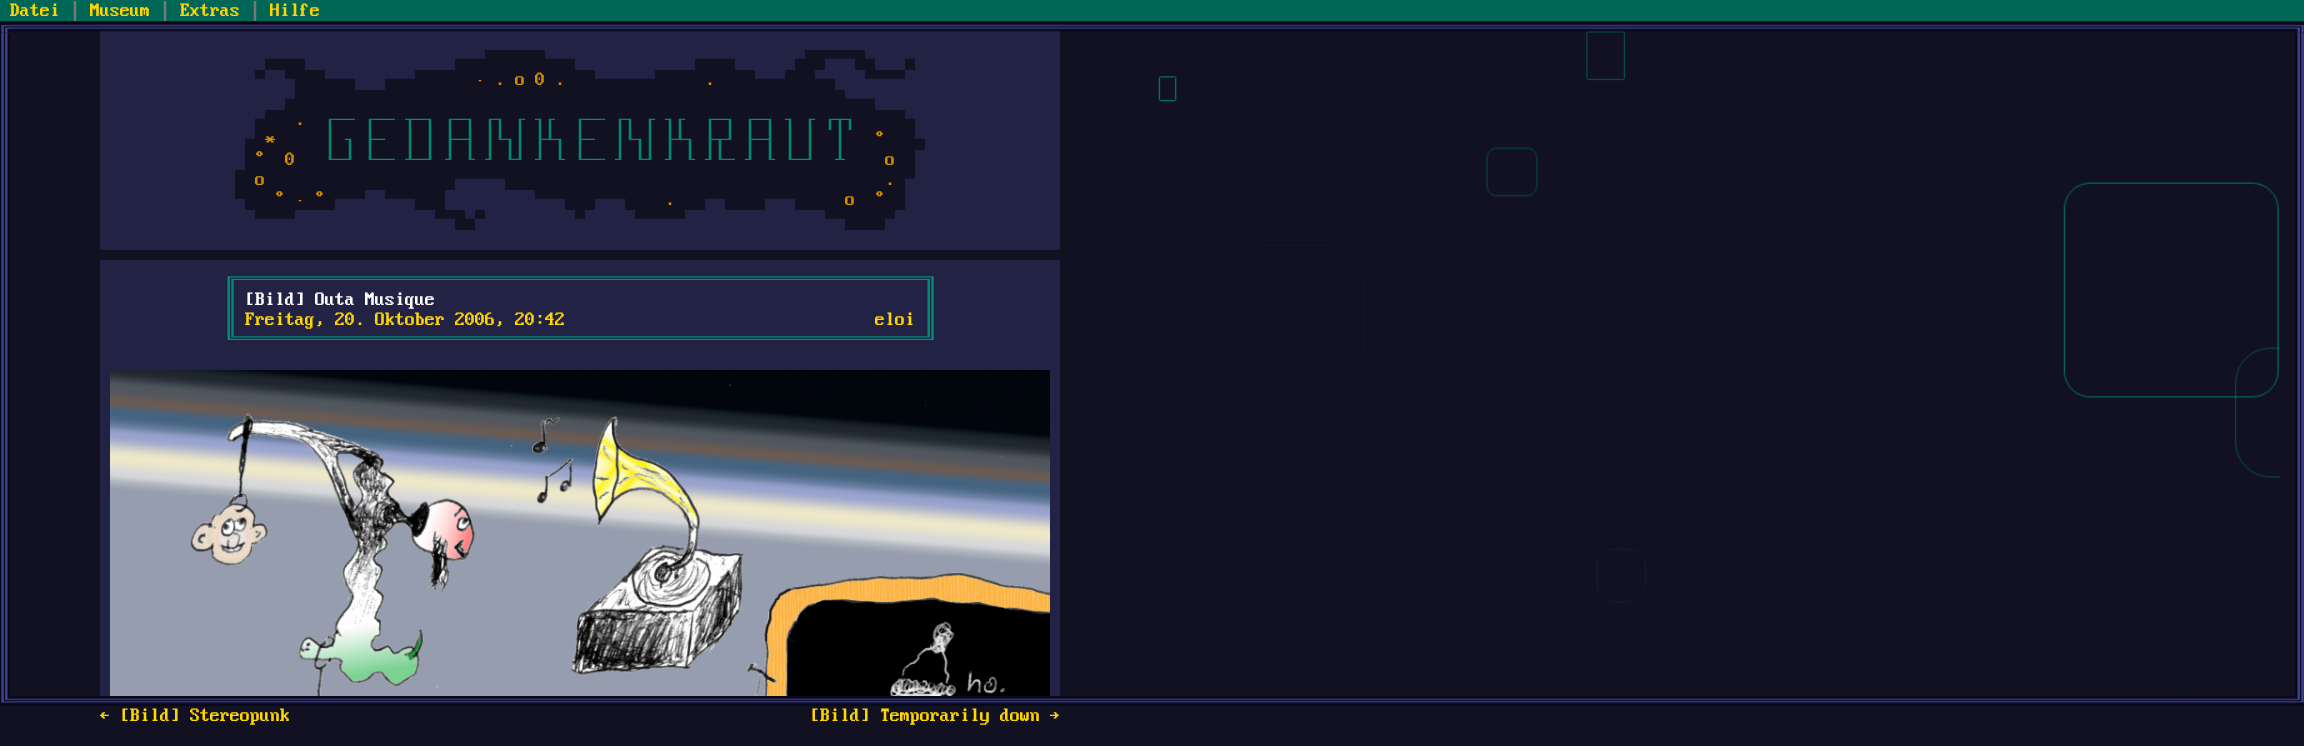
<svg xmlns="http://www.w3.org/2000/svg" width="2304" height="746">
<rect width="100%" height="100%" fill="#112"/>
<image x="0" y="33" width="2304" height="662" href="media/1.png"/>
<rect width="2304" height="22" fill="#006656"/>
<rect x="100" y="31" width="960" height="219" fill="#224"/>
<rect x="225" y="31" width="710" height="39" fill="#112"/>
<text x="225" y="45" style="font-family:'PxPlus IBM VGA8';font-size:20px;fill:#224">███████████████████████████████████████████████████████████████████████</text>
<image x="1158" y="31" width="1122" height="665" href="media/5.png"/>
<image x="0" y="21" width="2304" height="11" href="media/2.png"/>
<text x="10" y="16" style="font-family:'PxPlus IBM VGA8';font-size:20px;fill:#ffd700">Datei</text>
<text x="70" y="16" style="font-family:'PxPlus IBM VGA8';font-size:20px;fill:#777">│</text>
<text x="90" y="16" style="font-family:'PxPlus IBM VGA8';font-size:20px;fill:#ffd700">Museum</text>
<text x="160" y="16" style="font-family:'PxPlus IBM VGA8';font-size:20px;fill:#777">│</text>
<text x="180" y="16" style="font-family:'PxPlus IBM VGA8';font-size:20px;fill:#ffd700">Extras</text>
<text x="250" y="16" style="font-family:'PxPlus IBM VGA8';font-size:20px;fill:#777">│</text>
<text x="270" y="16" style="font-family:'PxPlus IBM VGA8';font-size:20px;fill:#ffd700">Hilfe</text>
<rect y="32" width="10" height="1" fill="#224"/>
<image x="0" y="23" width="10" height="10" href="media/3.png"/>
<rect x="2295" y="32" width="9" height="1" fill="#224"/>
<image x="2295" y="23" width="9" height="10" href="media/4.png"/>
<text x="225" y="65" style="font-family:'PxPlus IBM VGA8';font-size:20px;fill:#224" xml:space="preserve">████▀▀▀▀███████████████▀▀▀      ▀▀▀████████████▀▀▀▀██████▀  ▄▄▄ ▀███▀██</text>
<rect x="225" y="70" width="710" height="40" fill="#112"/>
<text x="225" y="85" style="font-family:'PxPlus IBM VGA8';font-size:20px;fill:#224" xml:space="preserve">███▄██▄   ▀▀▀███▀▀▀</text>
<text x="475" y="85" style="font-family:'PxPlus IBM VGA8';font-size:20px;fill:#d48f00">· . o 0 .</text>
<text x="595" y="85" style="font-family:'PxPlus IBM VGA8';font-size:20px;fill:#224">▀▀▀▀▀▀</text>
<text x="705" y="85" style="font-family:'PxPlus IBM VGA8';font-size:20px;fill:#d48f00">.</text>
<text x="755" y="85" style="font-family:'PxPlus IBM VGA8';font-size:20px;fill:#224" xml:space="preserve">▀▀▀   ▀▀███▄▄▄▄███</text>
<text x="225" y="105" style="font-family:'PxPlus IBM VGA8';font-size:20px;fill:#224" xml:space="preserve">██████▀                                                       ▀▀▀██████</text>
<rect x="225" y="110" width="710" height="20" fill="#112"/>
<text x="225" y="125" style="font-family:'PxPlus IBM VGA8';font-size:20px;fill:#224">███▀</text>
<text x="295" y="125" style="font-family:'PxPlus IBM VGA8';font-size:20px;fill:#d48f00">.</text>
<text x="325" y="125" style="font-family:'PxPlus IBM VGA8';font-size:20px;fill:#008974" xml:space="preserve">┌── ┌── ┬─┐ ┌─┐ ┌┐ ┌ ┐┌  ┌── ┌┐ ┌ ┐┌  ┌─┐ ┌─┐ ┐ ┌ ┌┬┐</text>
<text x="905" y="125" style="font-family:'PxPlus IBM VGA8';font-size:20px;fill:#224">▀██</text>
<rect x="225" y="130" width="710" height="20" fill="#112"/>
<text x="225" y="145" style="font-family:'PxPlus IBM VGA8';font-size:20px;fill:#224">██▀</text>
<text x="325" y="145" style="font-family:'PxPlus IBM VGA8';font-size:20px;fill:#008974" xml:space="preserve">│ ┐ ├─  │ │ ├─┤ │└┐│ ├┴┐ ├─  │└┐│ ├┴┐ ├┬┘ ├─┤ │ │  │</text>
<text x="875" y="145" style="font-family:'PxPlus IBM VGA8';font-size:20px;fill:#d48f00">°</text>
<text x="915" y="145" style="font-family:'PxPlus IBM VGA8';font-size:20px;fill:#224">▀█</text>
<text x="265" y="145" style="font-family:'PxPlus IBM VGA8';font-size:20px;fill:#d48f00">*</text>
<rect x="225" y="150" width="710" height="20" fill="#112"/>
<text x="225" y="165" style="font-family:'PxPlus IBM VGA8';font-size:20px;fill:#224">██</text>
<text x="255" y="165" style="font-family:'PxPlus IBM VGA8';font-size:20px;fill:#d48f00" xml:space="preserve">°  0</text>
<text x="325" y="165" style="font-family:'PxPlus IBM VGA8';font-size:20px;fill:#008974" xml:space="preserve">└─┘ └── ┴─┘ ┘ └ ┘ └┘ ┘ └ └── ┘ └┘ ┘ └ ┘└─ ┘ └ └─┘  ┴</text>
<text x="885" y="165" style="font-family:'PxPlus IBM VGA8';font-size:20px;fill:#d48f00">o</text>
<text x="915" y="165" style="font-family:'PxPlus IBM VGA8';font-size:20px;fill:#224">██</text>
<rect x="225" y="170" width="710" height="20" fill="#112"/>
<text x="225" y="185" style="font-family:'PxPlus IBM VGA8';font-size:20px;fill:#224">█</text>
<text x="255" y="185" style="font-family:'PxPlus IBM VGA8';font-size:20px;fill:#d48f00">o</text>
<text x="455" y="185" style="font-family:'PxPlus IBM VGA8';font-size:20px;fill:#224">▄▄▄▄▄</text>
<text x="885" y="185" style="font-family:'PxPlus IBM VGA8';font-size:20px;fill:#d48f00">.</text>
<text x="905" y="185" style="font-family:'PxPlus IBM VGA8';font-size:20px;fill:#224">▄██</text>
<rect x="225" y="190" width="710" height="60" fill="#112"/>
<text x="225" y="205" style="font-family:'PxPlus IBM VGA8';font-size:20px;fill:#224">█▄</text>
<text x="275" y="205" style="font-family:'PxPlus IBM VGA8';font-size:20px;fill:#d48f00">° · °</text>
<text x="335" y="205" style="font-family:'PxPlus IBM VGA8';font-size:20px;fill:#224" xml:space="preserve">▄▄▄██▄▄▄   █████████▄▄▄   ▄▄▄</text>
<text x="665" y="205" style="font-family:'PxPlus IBM VGA8';font-size:20px;fill:#d48f00">.</text>
<text x="705" y="205" style="font-family:'PxPlus IBM VGA8';font-size:20px;fill:#224" xml:space="preserve">▄▄    ▄▄▄</text>
<text x="845" y="205" style="font-family:'PxPlus IBM VGA8';font-size:20px;fill:#d48f00" xml:space="preserve">o  °</text>
<text x="905" y="205" style="font-family:'PxPlus IBM VGA8';font-size:20px;fill:#224">███</text>
<text x="225" y="225" style="font-family:'PxPlus IBM VGA8';font-size:20px;fill:#224" xml:space="preserve">███▄▄▄▄██████████████▄▄ ▀▄█████████▄█████▄▄▄▄▄██████████████▄▄    ▄████</text>
<text x="225" y="245" style="font-family:'PxPlus IBM VGA8';font-size:20px;fill:#224">███████████████████████████████████████████████████████████████████████</text>
<rect x="100" y="260" width="960" height="436" fill="#224"/>
<text x="225" y="285" style="font-family:'PxPlus IBM VGA8';font-size:20px;fill:#008974">╔═════════════════════════════════════════════════════════════════════╗</text>
<text x="225" y="305" style="font-family:'PxPlus IBM VGA8';font-size:20px;fill:#008974">║</text>
<text x="245" y="305" style="font-family:'PxPlus IBM VGA8';font-size:20px;fill:#fff">[Bild] Outa Musique</text>
<text x="925" y="305" style="font-family:'PxPlus IBM VGA8';font-size:20px;fill:#008974">║</text>
<text x="225" y="325" style="font-family:'PxPlus IBM VGA8';font-size:20px;fill:#008974">║</text>
<text x="245" y="325" style="font-family:'PxPlus IBM VGA8';font-size:20px;fill:#ffd700">Freitag, 20. Oktober 2006, 20:42</text>
<text x="875" y="325" style="font-family:'PxPlus IBM VGA8';font-size:20px;fill:#ffd700">eloi</text>
<text x="925" y="325" style="font-family:'PxPlus IBM VGA8';font-size:20px;fill:#008974">║</text>
<text x="225" y="345" style="font-family:'PxPlus IBM VGA8';font-size:20px;fill:#008974">╚═════════════════════════════════════════════════════════════════════╝</text>
<image x="110" y="370" width="940" height="326" href="media/6.png"/>
<image x="0" y="696" width="2304" height="10" href="media/7.png"/>
<image x="0" y="695" width="10" height="10" href="media/8.png"/>
<image x="2295" y="695" width="9" height="10" href="media/9.png"/>
<text x="100" y="721" style="font-family:'PxPlus IBM VGA8';font-size:20px;fill:#ffd700">← [Bild] Stereopunk</text>
<text x="810" y="721" style="font-family:'PxPlus IBM VGA8';font-size:20px;fill:#ffd700">[Bild] Temporarily down →</text>
</svg>
